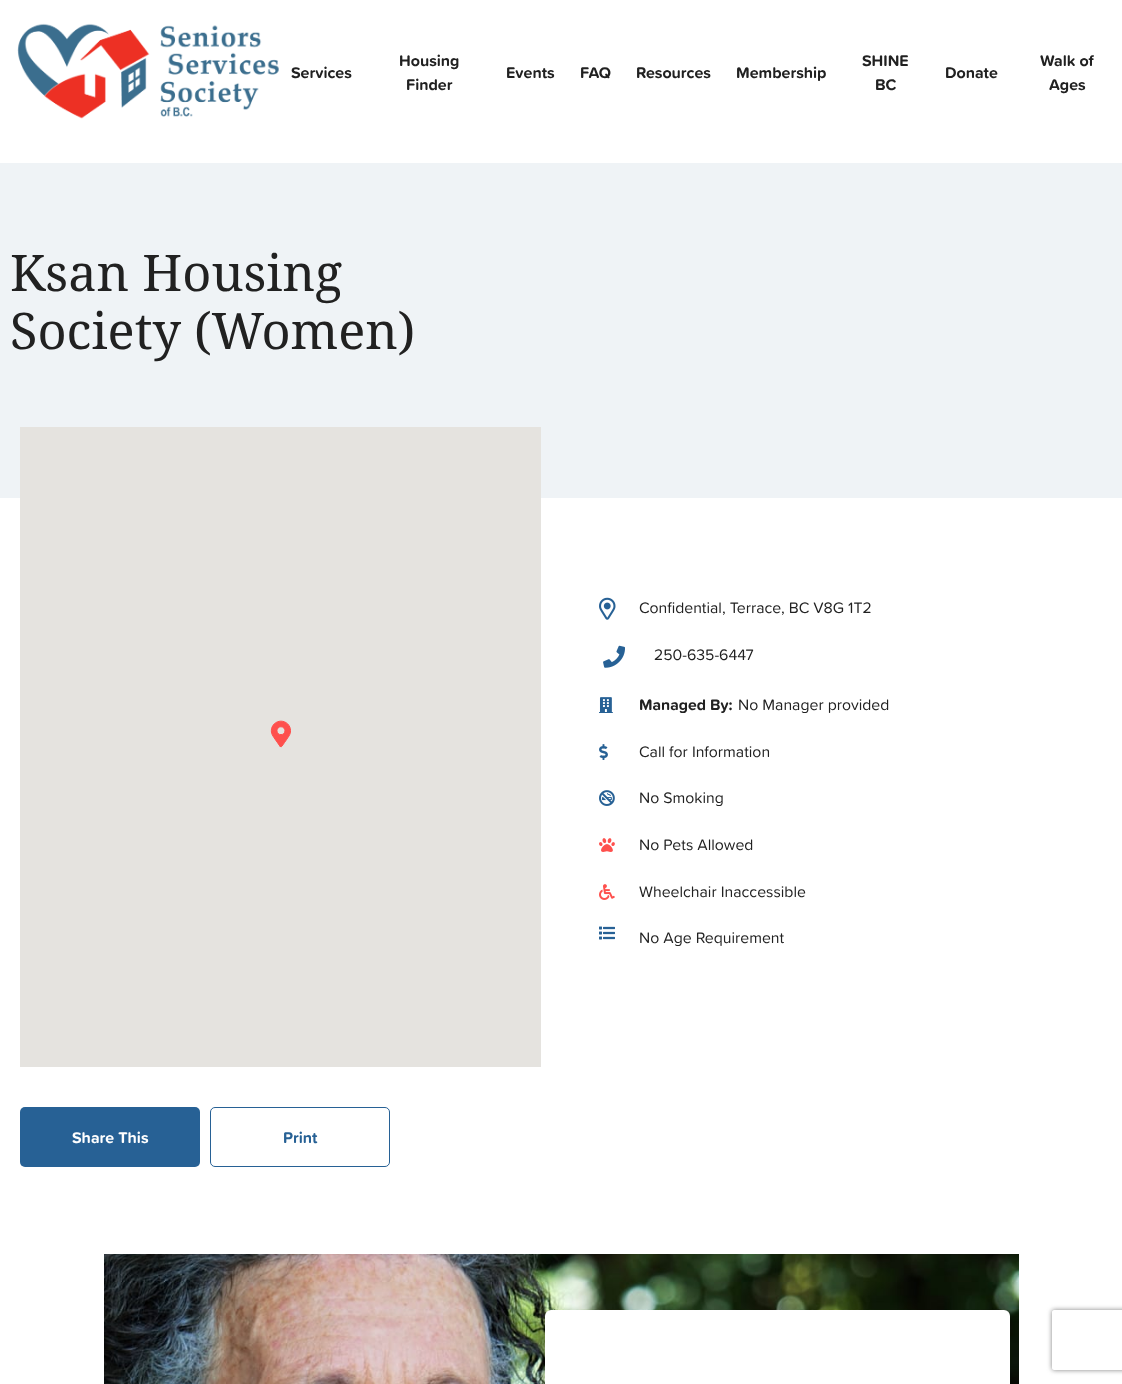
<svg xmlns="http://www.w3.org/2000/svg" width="1122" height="1384">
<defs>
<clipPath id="clip1"><path d="M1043 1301h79v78h-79zm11 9h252c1 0 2 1 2 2v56c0 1-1 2-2 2h-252c-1 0-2-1-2-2v-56c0-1 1-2 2-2z" clip-rule="evenodd"/></clipPath>
</defs>
<rect width="100%" height="100%" fill="#fff"/>
<image x="17" y="23" width="262" height="96" href="media/1.png"/>
<text x="291" y="78" style="font-family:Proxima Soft;font-size:16px;font-weight:bold;fill:#212121">Services</text>
<text x="399" y="66" style="font-family:Proxima Soft;font-size:16px;font-weight:bold;fill:#212121">Housing</text>
<text x="406" y="90" style="font-family:Proxima Soft;font-size:16px;font-weight:bold;fill:#212121">Finder</text>
<text x="506" y="78" style="font-family:Proxima Soft;font-size:16px;font-weight:bold;fill:#212121">Events</text>
<text x="580" y="78" style="font-family:Proxima Soft;font-size:16px;font-weight:bold;fill:#212121">FAQ</text>
<text x="636" y="78" style="font-family:Proxima Soft;font-size:16px;font-weight:bold;fill:#212121">Resources</text>
<text x="736" y="78" style="font-family:Proxima Soft;font-size:16px;font-weight:bold;fill:#212121">Membership</text>
<text x="862" y="66" style="font-family:Proxima Soft;font-size:16px;font-weight:bold;fill:#212121">SHINE</text>
<text x="875" y="90" style="font-family:Proxima Soft;font-size:16px;font-weight:bold;fill:#212121">BC</text>
<text x="945" y="78" style="font-family:Proxima Soft;font-size:16px;font-weight:bold;fill:#212121">Donate</text>
<text x="1040" y="66" style="font-family:Proxima Soft;font-size:16px;font-weight:bold;fill:#212121">Walk of</text>
<text x="1049" y="90" style="font-family:Proxima Soft;font-size:16px;font-weight:bold;fill:#212121">Ages</text>
<rect y="163" width="1122" height="335" fill="#eff3f6"/>
<text x="10" y="291" style="font-family:Droid Serif;font-size:50.5px;fill:#212121">Ksan Housing</text>
<text x="10" y="349" style="font-family:Droid Serif;font-size:50.5px;fill:#212121">Society (Women)</text>
<image x="599" y="597" width="17" height="23" href="media/2.png"/>
<text x="639" y="613" style="font-family:Proxima Soft;font-size:15.8px;fill:#212121">Confidential, Terrace, BC V8G 1T2</text>
<image x="603" y="645" width="22" height="23" href="media/3.png"/>
<text x="654" y="660" style="font-family:Proxima Soft;font-size:15.8px;fill:#212121">250-635-6447</text>
<image x="599" y="697" width="14" height="16" href="media/4.png"/>
<text x="639" y="710" style="font-family:Proxima Soft;font-size:15.8px;font-weight:bold;fill:#212121">Managed By:</text>
<text x="738" y="710" style="font-family:Proxima Soft;font-size:15.8px;fill:#212121">No Manager provided</text>
<image x="599" y="744" width="9" height="16" href="media/5.png"/>
<text x="639" y="757" style="font-family:Proxima Soft;font-size:15.8px;fill:#212121">Call for Information</text>
<image x="599" y="790" width="16" height="16" href="media/6.png"/>
<text x="639" y="803" style="font-family:Proxima Soft;font-size:15.8px;fill:#212121">No Smoking</text>
<image x="599" y="838" width="16" height="14" href="media/7.png"/>
<text x="639" y="850" style="font-family:Proxima Soft;font-size:15.8px;fill:#212121">No Pets Allowed</text>
<image x="599" y="884" width="16" height="16" href="media/8.png"/>
<text x="639" y="897" style="font-family:Proxima Soft;font-size:15.8px;fill:#212121">Wheelchair Inaccessible</text>
<image x="599" y="926" width="16" height="14" href="media/9.png"/>
<text x="639" y="943" style="font-family:Proxima Soft;font-size:15.8px;fill:#212121">No Age Requirement</text>
<rect x="20" y="427" width="521" height="640" fill="#e5e3df"/>
<image x="270" y="720" width="21" height="28" href="media/10.png"/>
<rect x="20" y="1107" width="180" height="60" rx="5" fill="#276195"/>
<text x="72" y="1143" style="font-family:Proxima Soft;font-size:16px;font-weight:bold;fill:#fff">Share This</text>
<rect x="210.5" y="1107.5" width="179" height="59" rx="4.5" fill="none" stroke="#276195"/>
<text x="283" y="1143" style="font-family:Proxima Soft;font-size:16px;font-weight:bold;fill:#276195">Print</text>
<image x="104" y="1254" width="915" height="130" href="media/11.png"/>
<rect x="545" y="1310" width="465" height="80" rx="6" fill="#fff"/>
<g clip-path="url(#clip1)">
<rect x="1052" y="1310" width="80" height="60" rx="2" fill="#808080" filter="blur(2.5px)"/>
</g>
</svg>
